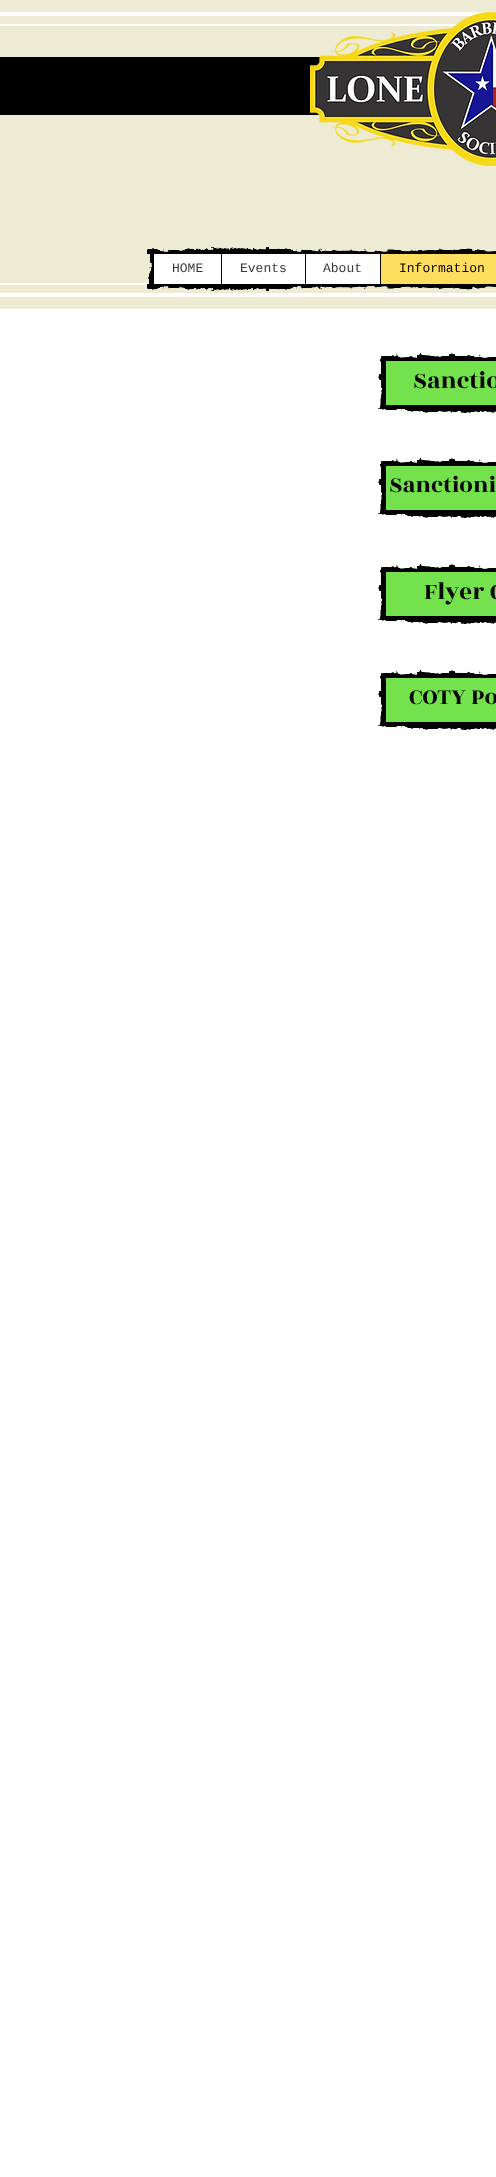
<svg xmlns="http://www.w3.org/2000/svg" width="496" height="2177">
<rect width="100%" height="100%" fill="#fff"/>
<rect width="496" height="309" fill="#eeebd5"/>
<rect y="12" width="496" height="4" fill="#fff"/>
<rect y="293" width="496" height="4" fill="#fff"/>
<rect y="24" width="461" height="2" fill="#fff"/>
<rect y="283" width="149" height="2" fill="#fff"/>
<rect y="57" width="340" height="58" fill="#000"/>
<image x="310" y="12" width="186" height="154" href="media/1.png"/>
<image x="147" y="247" width="349" height="7" href="media/2.png"/>
<image x="148" y="254" width="6" height="30" href="media/3.png"/>
<rect x="154" y="254" width="226" height="30" fill="#fff"/>
<text x="172" y="272" style="font-family:Liberation Mono;font-size:13px;fill:#383838">HOME</text>
<rect x="221" y="254" width="1" height="30" fill="#080808"/>
<text x="240" y="272" style="font-family:Liberation Mono;font-size:13px;fill:#383838">Events</text>
<rect x="305" y="254" width="1" height="30" fill="#080808"/>
<text x="323" y="272" style="font-family:Liberation Mono;font-size:13px;fill:#383838">About</text>
<rect x="381" y="254" width="115" height="30" fill="#ffde5f"/>
<rect x="380" y="254" width="1" height="30" fill="#080808"/>
<text x="399" y="272" style="font-family:Liberation Mono;font-size:13px;fill:#000">Information</text>
<image x="147" y="284" width="349" height="7" href="media/4.png"/>
<image x="378" y="353" width="118" height="56" href="media/5.png"/>
<image x="382" y="404" width="114" height="9" href="media/6.png"/>
<rect x="386" y="361" width="110" height="44" fill="#74e24c"/>
<text x="413" y="388" style="font-family:Rozha One;font-size:25px;fill:#080808">Sanctio</text>
<image x="378" y="458" width="118" height="56" href="media/5.png"/>
<image x="382" y="509" width="114" height="9" href="media/6.png"/>
<rect x="386" y="466" width="110" height="44" fill="#74e24c"/>
<text x="389" y="492" style="font-family:Rozha One;font-size:24px;fill:#080808">Sanctioni</text>
<image x="378" y="564" width="118" height="56" href="media/5.png"/>
<image x="382" y="615" width="114" height="9" href="media/6.png"/>
<rect x="386" y="572" width="110" height="44" fill="#74e24c"/>
<text x="424" y="599" style="font-family:Rozha One;font-size:25px;fill:#080808">Flyer G</text>
<image x="378" y="670" width="118" height="56" href="media/5.png"/>
<image x="382" y="721" width="114" height="9" href="media/6.png"/>
<rect x="386" y="678" width="110" height="44" fill="#74e24c"/>
<text x="409" y="704" style="font-family:Rozha One;font-size:24px;fill:#080808">COTY Po</text>
</svg>
